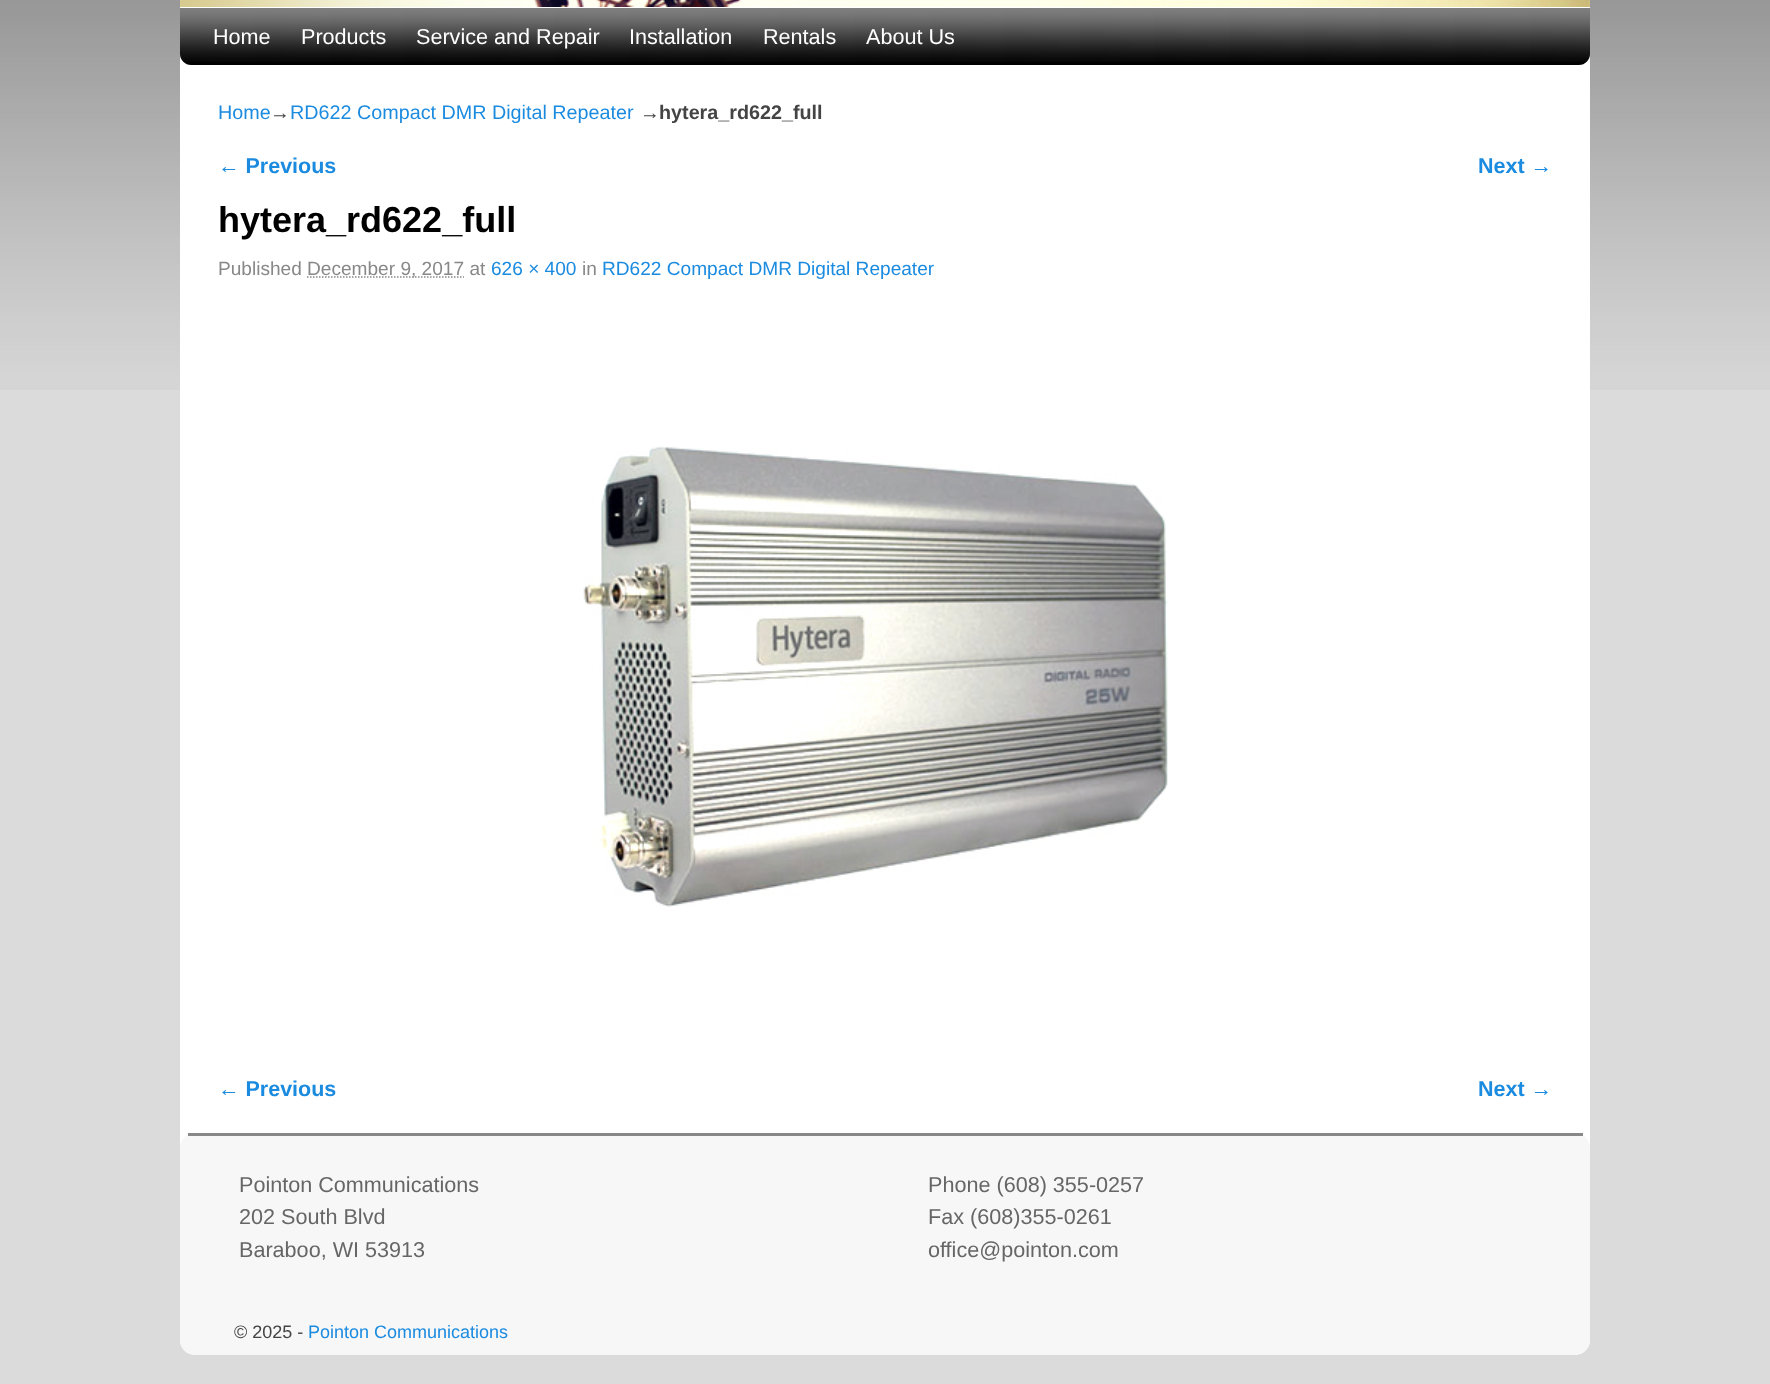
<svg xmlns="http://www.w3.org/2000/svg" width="1770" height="1384">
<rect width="100%" height="100%" fill="#dbdbdb"/>
<image x="0" y="0" width="1770" height="390" href="media/1.png"/>
<rect x="180" y="-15" width="1410" height="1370" rx="15" fill="#fff"/>
<image x="180" y="0" width="1410" height="7" href="media/2.png"/>
<path d="M180 8h1410v46c0 6-5 11-11 11h-1388c-6 0-11-5-11-11z" fill="#000"/>
<image x="180" y="8" width="1410" height="54" href="media/3.png"/>
<text x="213" y="44" style="font-family:Liberation Sans;font-size:21.6px;fill:#fff">Home</text>
<text x="301" y="44" style="font-family:Liberation Sans;font-size:21.6px;fill:#fff">Products</text>
<text x="416" y="44" style="font-family:Liberation Sans;font-size:21.6px;fill:#fff">Service and Repair</text>
<text x="629" y="44" style="font-family:Liberation Sans;font-size:21.6px;fill:#fff">Installation</text>
<text x="763" y="44" style="font-family:Liberation Sans;font-size:21.6px;fill:#fff">Rentals</text>
<text x="866" y="44" style="font-family:Liberation Sans;font-size:21.6px;fill:#fff">About Us</text>
<text x="218" y="119" style="font-family:Liberation Sans;font-size:19.75px;fill:#1b8be0">Home</text>
<text x="270" y="119" style="font-family:Liberation Sans;font-size:19.75px;fill:#444">→</text>
<text x="290" y="119" style="font-family:Liberation Sans;font-size:19.75px;fill:#1b8be0">RD622 Compact DMR Digital Repeater</text>
<text x="640" y="119" style="font-family:Liberation Sans;font-size:19.75px;fill:#444">→</text>
<text x="659" y="119" style="font-family:Liberation Sans;font-size:19.75px;font-weight:bold;fill:#444">hytera_rd622_full</text>
<text x="218" y="173" style="font-family:Liberation Sans;font-size:21.5px;font-weight:bold;fill:#1b8be0">← Previous</text>
<text x="1478" y="173" style="font-family:Liberation Sans;font-size:21.5px;font-weight:bold;fill:#1b8be0">Next →</text>
<text x="218" y="232" style="font-family:Liberation Sans;font-size:36px;font-weight:bold;fill:#000">hytera_rd622_full</text>
<text x="218" y="275" style="font-family:Liberation Sans;font-size:19.1px;fill:#888">Published</text>
<path d="M307 277h157" fill="none" stroke="#888" stroke-width="1.5" stroke-dasharray="1.5 1.5"/>
<text x="307" y="275" style="font-family:Liberation Sans;font-size:19.1px;fill:#888">December 9, 2017 at</text>
<text x="491" y="275" style="font-family:Liberation Sans;font-size:19.1px;fill:#1b8be0">626 × 400</text>
<text x="582" y="275" style="font-family:Liberation Sans;font-size:19.1px;fill:#888">in</text>
<text x="602" y="275" style="font-family:Liberation Sans;font-size:19.1px;fill:#1b8be0">RD622 Compact DMR Digital Repeater</text>
<image x="583" y="446" width="585" height="461" href="media/4.png"/>
<text x="218" y="1096" style="font-family:Liberation Sans;font-size:21.5px;font-weight:bold;fill:#1b8be0">← Previous</text>
<text x="1478" y="1096" style="font-family:Liberation Sans;font-size:21.5px;font-weight:bold;fill:#1b8be0">Next →</text>
<rect x="180" y="1133" width="1410" height="222" rx="15" fill="#f7f7f7"/>
<rect x="188" y="1133" width="1395" height="3" fill="#888"/>
<text x="239" y="1192" style="font-family:Liberation Sans;font-size:21.6px;fill:#666">Pointon Communications</text>
<text x="239" y="1224" style="font-family:Liberation Sans;font-size:21.6px;fill:#666">202 South Blvd</text>
<text x="239" y="1257" style="font-family:Liberation Sans;font-size:21.6px;fill:#666">Baraboo, WI 53913</text>
<text x="928" y="1192" style="font-family:Liberation Sans;font-size:21.6px;fill:#666">Phone (608) 355-0257</text>
<text x="928" y="1224" style="font-family:Liberation Sans;font-size:21.6px;fill:#666">Fax (608)355-0261</text>
<text x="928" y="1257" style="font-family:Liberation Sans;font-size:21.6px;fill:#666">office@pointon.com</text>
<text x="234" y="1338" style="font-family:Liberation Sans;font-size:18px;fill:#444">© 2025 -</text>
<text x="308" y="1338" style="font-family:Liberation Sans;font-size:18px;fill:#1b8be0">Pointon Communications</text>
</svg>
